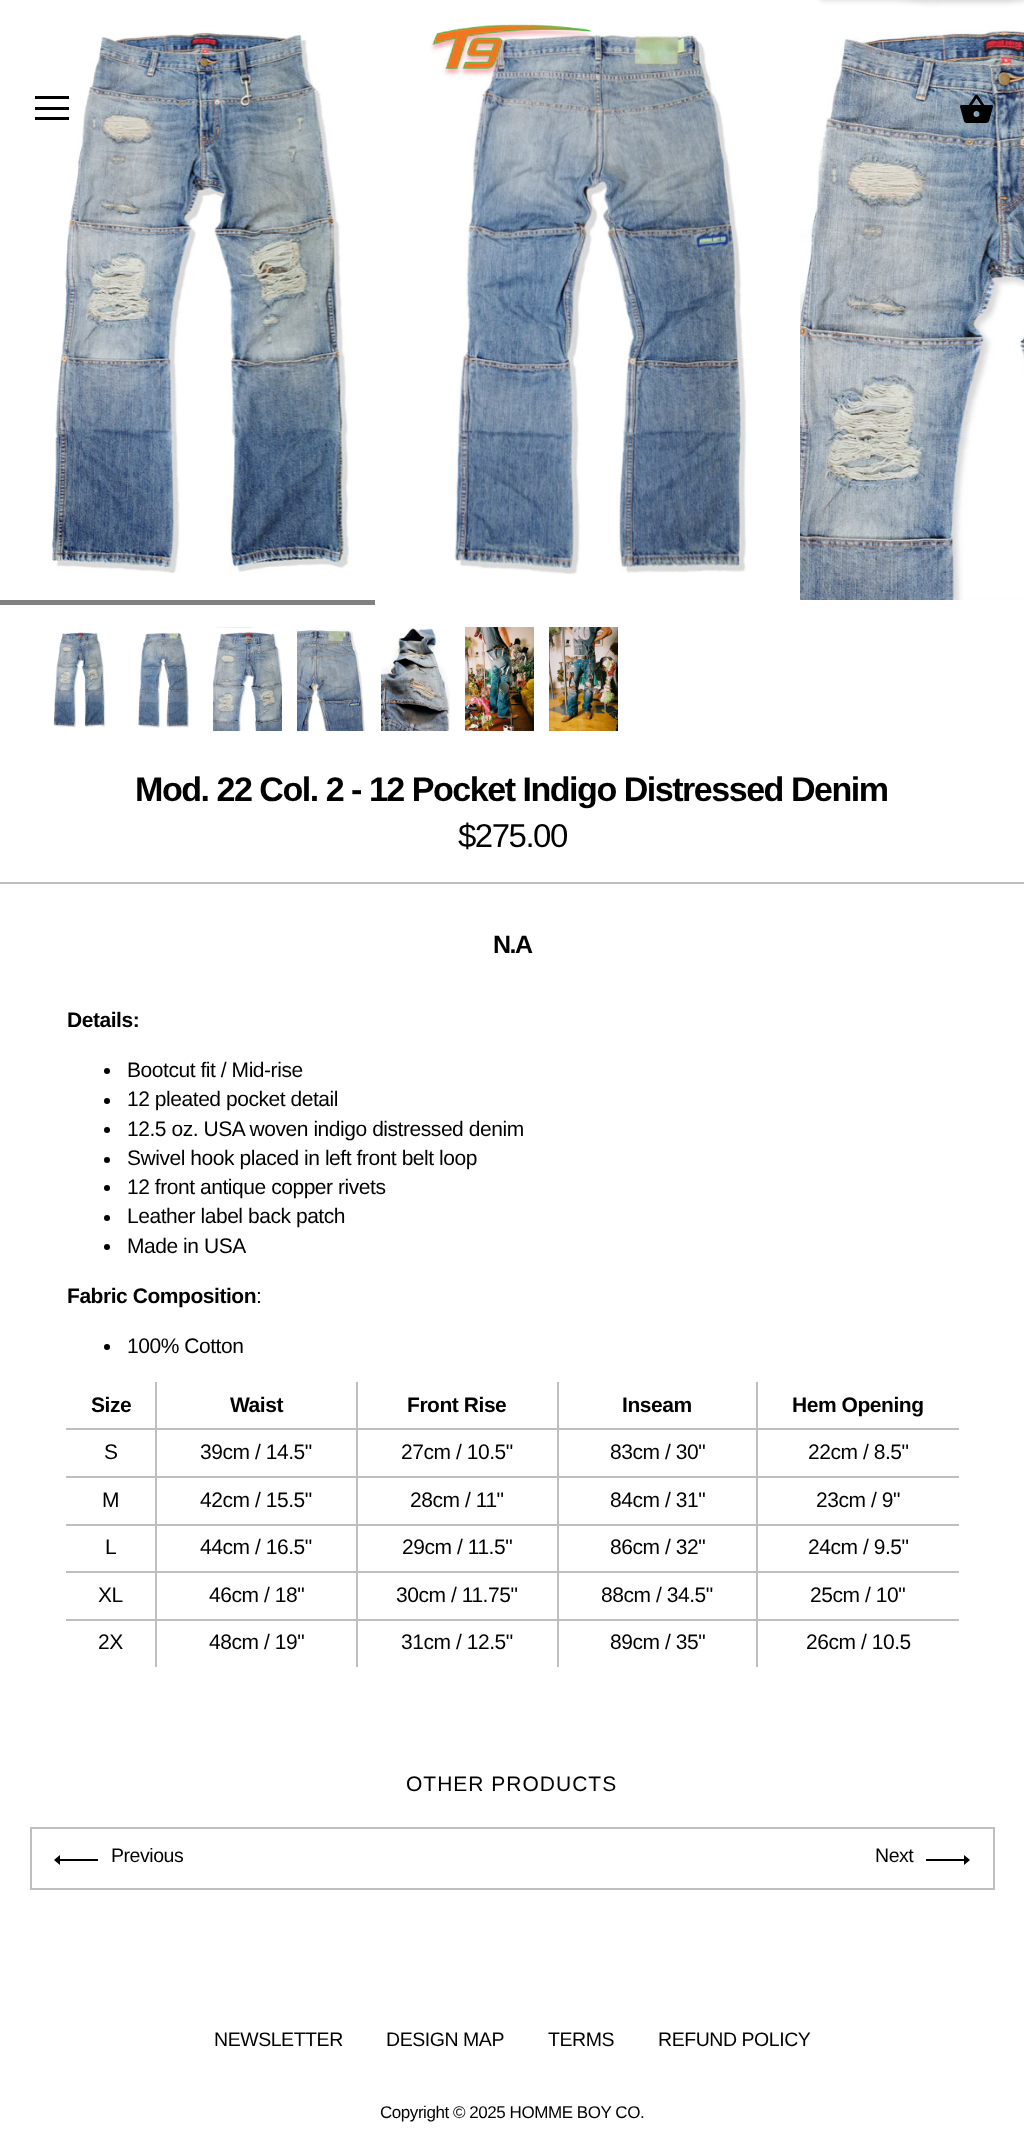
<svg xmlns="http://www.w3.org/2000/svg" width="1024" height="2138">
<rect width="100%" height="100%" fill="#fff"/>
<image x="454" y="34" width="293" height="540" href="media/4.png"/>
<image x="430" y="24" width="162" height="53" href="media/1.png"/>
<image x="52" y="31" width="297" height="542" href="media/3.png"/>
<rect x="35" y="96" width="34" height="3" fill="#000"/>
<rect x="35" y="107" width="34" height="3" fill="#000"/>
<rect x="35" y="117" width="34" height="3" fill="#000"/>
<image x="800" y="0" width="224" height="600" href="media/5.png"/>
<image x="960" y="94" width="33" height="29" href="media/2.png"/>
<rect y="600" width="375" height="5" fill="#808080"/>
<rect y="882" width="1024" height="2" fill="#bfbfbf"/>
<image x="53" y="632" width="53" height="96" href="media/6.png"/>
<image x="138" y="633" width="51" height="95" href="media/7.png"/>
<image x="213" y="627" width="69" height="104" href="media/8.png"/>
<image x="297" y="629" width="68" height="102" href="media/9.png"/>
<image x="381" y="628" width="69" height="103" href="media/10.png"/>
<image x="465" y="627" width="69" height="104" href="media/11.png"/>
<image x="549" y="627" width="69" height="104" href="media/12.png"/>
<text x="135" y="801" style="font-family:Liberation Sans;font-size:34.1px;font-weight:bold;letter-spacing:-1.5px;fill:#000">Mod. 22 Col. 2 - 12 Pocket Indigo Distressed Denim</text>
<text x="458" y="847" style="font-family:Liberation Sans;font-size:33px;letter-spacing:-1.5px;fill:#000">$275.00</text>
<text x="493" y="953" style="font-family:Liberation Sans;font-size:25px;font-weight:bold;letter-spacing:-1.5px;fill:#000">N.A</text>
<text x="67" y="1027" style="font-family:Liberation Sans;font-size:21px;font-weight:bold;letter-spacing:-0.45px;fill:#000">Details:</text>
<circle cx="107" cy="1071" r="3" fill="#000"/>
<text x="127" y="1077" style="font-family:Liberation Sans;font-size:21px;letter-spacing:-0.45px;fill:#000">Bootcut fit / Mid-rise</text>
<circle cx="107" cy="1101" r="3" fill="#000"/>
<text x="127" y="1106" style="font-family:Liberation Sans;font-size:21px;letter-spacing:-0.45px;fill:#000">12 pleated pocket detail</text>
<circle cx="107" cy="1130" r="3" fill="#000"/>
<text x="127" y="1136" style="font-family:Liberation Sans;font-size:21px;letter-spacing:-0.45px;fill:#000">12.5 oz. USA woven indigo distressed denim</text>
<circle cx="107" cy="1160" r="3" fill="#000"/>
<text x="127" y="1165" style="font-family:Liberation Sans;font-size:21px;letter-spacing:-0.45px;fill:#000">Swivel hook placed in left front belt loop</text>
<circle cx="107" cy="1188" r="3" fill="#000"/>
<text x="127" y="1194" style="font-family:Liberation Sans;font-size:21px;letter-spacing:-0.45px;fill:#000">12 front antique copper rivets</text>
<circle cx="107" cy="1218" r="3" fill="#000"/>
<text x="127" y="1223" style="font-family:Liberation Sans;font-size:21px;letter-spacing:-0.45px;fill:#000">Leather label back patch</text>
<circle cx="107" cy="1247" r="3" fill="#000"/>
<text x="127" y="1253" style="font-family:Liberation Sans;font-size:21px;letter-spacing:-0.45px;fill:#000">Made in USA</text>
<text x="67" y="1303" style="font-family:Liberation Sans;font-size:21px;font-weight:bold;letter-spacing:-0.45px;fill:#000">Fabric Composition</text>
<text x="256" y="1303" style="font-family:Liberation Sans;font-size:21px;letter-spacing:-0.45px;fill:#000">:</text>
<circle cx="107" cy="1347" r="3" fill="#000"/>
<text x="127" y="1353" style="font-family:Liberation Sans;font-size:21px;letter-spacing:-0.45px;fill:#000">100% Cotton</text>
<text x="91" y="1412" style="font-family:Liberation Sans;font-size:21px;font-weight:bold;letter-spacing:-0.45px;fill:#000">Size</text>
<text x="230" y="1412" style="font-family:Liberation Sans;font-size:21px;font-weight:bold;letter-spacing:-0.45px;fill:#000">Waist</text>
<text x="407" y="1412" style="font-family:Liberation Sans;font-size:21px;font-weight:bold;letter-spacing:-0.45px;fill:#000">Front Rise</text>
<text x="622" y="1412" style="font-family:Liberation Sans;font-size:21px;font-weight:bold;letter-spacing:-0.45px;fill:#000">Inseam</text>
<text x="792" y="1412" style="font-family:Liberation Sans;font-size:21px;font-weight:bold;letter-spacing:-0.45px;fill:#000">Hem Opening</text>
<rect x="66" y="1428" width="893" height="2" fill="#bfbfbf"/>
<text x="104" y="1459" style="font-family:Liberation Sans;font-size:21px;letter-spacing:-0.45px;fill:#000">S</text>
<text x="200" y="1459" style="font-family:Liberation Sans;font-size:21px;letter-spacing:-0.45px;fill:#000">39cm / 14.5"</text>
<text x="401" y="1459" style="font-family:Liberation Sans;font-size:21px;letter-spacing:-0.45px;fill:#000">27cm / 10.5"</text>
<text x="610" y="1459" style="font-family:Liberation Sans;font-size:21px;letter-spacing:-0.45px;fill:#000">83cm / 30"</text>
<text x="808" y="1459" style="font-family:Liberation Sans;font-size:21px;letter-spacing:-0.45px;fill:#000">22cm / 8.5"</text>
<rect x="66" y="1476" width="893" height="2" fill="#bfbfbf"/>
<text x="102" y="1507" style="font-family:Liberation Sans;font-size:21px;letter-spacing:-0.45px;fill:#000">M</text>
<text x="200" y="1507" style="font-family:Liberation Sans;font-size:21px;letter-spacing:-0.45px;fill:#000">42cm / 15.5"</text>
<text x="410" y="1507" style="font-family:Liberation Sans;font-size:21px;letter-spacing:-0.45px;fill:#000">28cm / 11"</text>
<text x="610" y="1507" style="font-family:Liberation Sans;font-size:21px;letter-spacing:-0.45px;fill:#000">84cm / 31"</text>
<text x="816" y="1507" style="font-family:Liberation Sans;font-size:21px;letter-spacing:-0.45px;fill:#000">23cm / 9"</text>
<rect x="66" y="1524" width="893" height="2" fill="#bfbfbf"/>
<text x="105" y="1554" style="font-family:Liberation Sans;font-size:21px;letter-spacing:-0.45px;fill:#000">L</text>
<text x="200" y="1554" style="font-family:Liberation Sans;font-size:21px;letter-spacing:-0.45px;fill:#000">44cm / 16.5"</text>
<text x="402" y="1554" style="font-family:Liberation Sans;font-size:21px;letter-spacing:-0.45px;fill:#000">29cm / 11.5"</text>
<text x="610" y="1554" style="font-family:Liberation Sans;font-size:21px;letter-spacing:-0.45px;fill:#000">86cm / 32"</text>
<text x="808" y="1554" style="font-family:Liberation Sans;font-size:21px;letter-spacing:-0.45px;fill:#000">24cm / 9.5"</text>
<rect x="66" y="1571" width="893" height="2" fill="#bfbfbf"/>
<text x="98" y="1602" style="font-family:Liberation Sans;font-size:21px;letter-spacing:-0.45px;fill:#000">XL</text>
<text x="209" y="1602" style="font-family:Liberation Sans;font-size:21px;letter-spacing:-0.45px;fill:#000">46cm / 18"</text>
<text x="396" y="1602" style="font-family:Liberation Sans;font-size:21px;letter-spacing:-0.45px;fill:#000">30cm / 11.75"</text>
<text x="601" y="1602" style="font-family:Liberation Sans;font-size:21px;letter-spacing:-0.45px;fill:#000">88cm / 34.5"</text>
<text x="810" y="1602" style="font-family:Liberation Sans;font-size:21px;letter-spacing:-0.45px;fill:#000">25cm / 10"</text>
<rect x="66" y="1619" width="893" height="2" fill="#bfbfbf"/>
<text x="98" y="1649" style="font-family:Liberation Sans;font-size:21px;letter-spacing:-0.45px;fill:#000">2X</text>
<rect x="155" y="1382" width="2" height="285" fill="#bfbfbf"/>
<text x="209" y="1649" style="font-family:Liberation Sans;font-size:21px;letter-spacing:-0.45px;fill:#000">48cm / 19"</text>
<rect x="356" y="1382" width="2" height="285" fill="#bfbfbf"/>
<text x="401" y="1649" style="font-family:Liberation Sans;font-size:21px;letter-spacing:-0.45px;fill:#000">31cm / 12.5"</text>
<rect x="557" y="1382" width="2" height="285" fill="#bfbfbf"/>
<text x="610" y="1649" style="font-family:Liberation Sans;font-size:21px;letter-spacing:-0.45px;fill:#000">89cm / 35"</text>
<rect x="756" y="1382" width="2" height="285" fill="#bfbfbf"/>
<text x="806" y="1649" style="font-family:Liberation Sans;font-size:21px;letter-spacing:-0.45px;fill:#000">26cm / 10.5</text>
<text x="406" y="1791" style="font-family:Liberation Sans;font-size:21px;letter-spacing:1px;fill:#000">OTHER PRODUCTS</text>
<rect x="31" y="1828" width="963" height="61" fill="none" stroke="#bfbfbf" stroke-width="2"/>
<path d="M60 1855v4h38v2h-38v4l-6-5z" fill="#000"/>
<text x="111" y="1862" style="font-family:Liberation Sans;font-size:19.5px;letter-spacing:-0.45px;fill:#000">Previous</text>
<text x="875" y="1862" style="font-family:Liberation Sans;font-size:19.5px;letter-spacing:-0.45px;fill:#000">Next</text>
<path d="M964 1855v4h-38v2h38v4l6-5z" fill="#000"/>
<text x="214" y="2046" style="font-family:Liberation Sans;font-size:19.5px;letter-spacing:-0.45px;fill:#000">NEWSLETTER</text>
<text x="386" y="2046" style="font-family:Liberation Sans;font-size:19.5px;letter-spacing:-0.45px;fill:#000">DESIGN MAP</text>
<text x="548" y="2046" style="font-family:Liberation Sans;font-size:19.5px;letter-spacing:-0.45px;fill:#000">TERMS</text>
<text x="658" y="2046" style="font-family:Liberation Sans;font-size:19.5px;letter-spacing:-0.45px;fill:#000">REFUND POLICY</text>
<text x="380" y="2118" style="font-family:Liberation Sans;font-size:17px;letter-spacing:-0.45px;fill:#000">Copyright © 2025 HOMME BOY CO.</text>
</svg>
